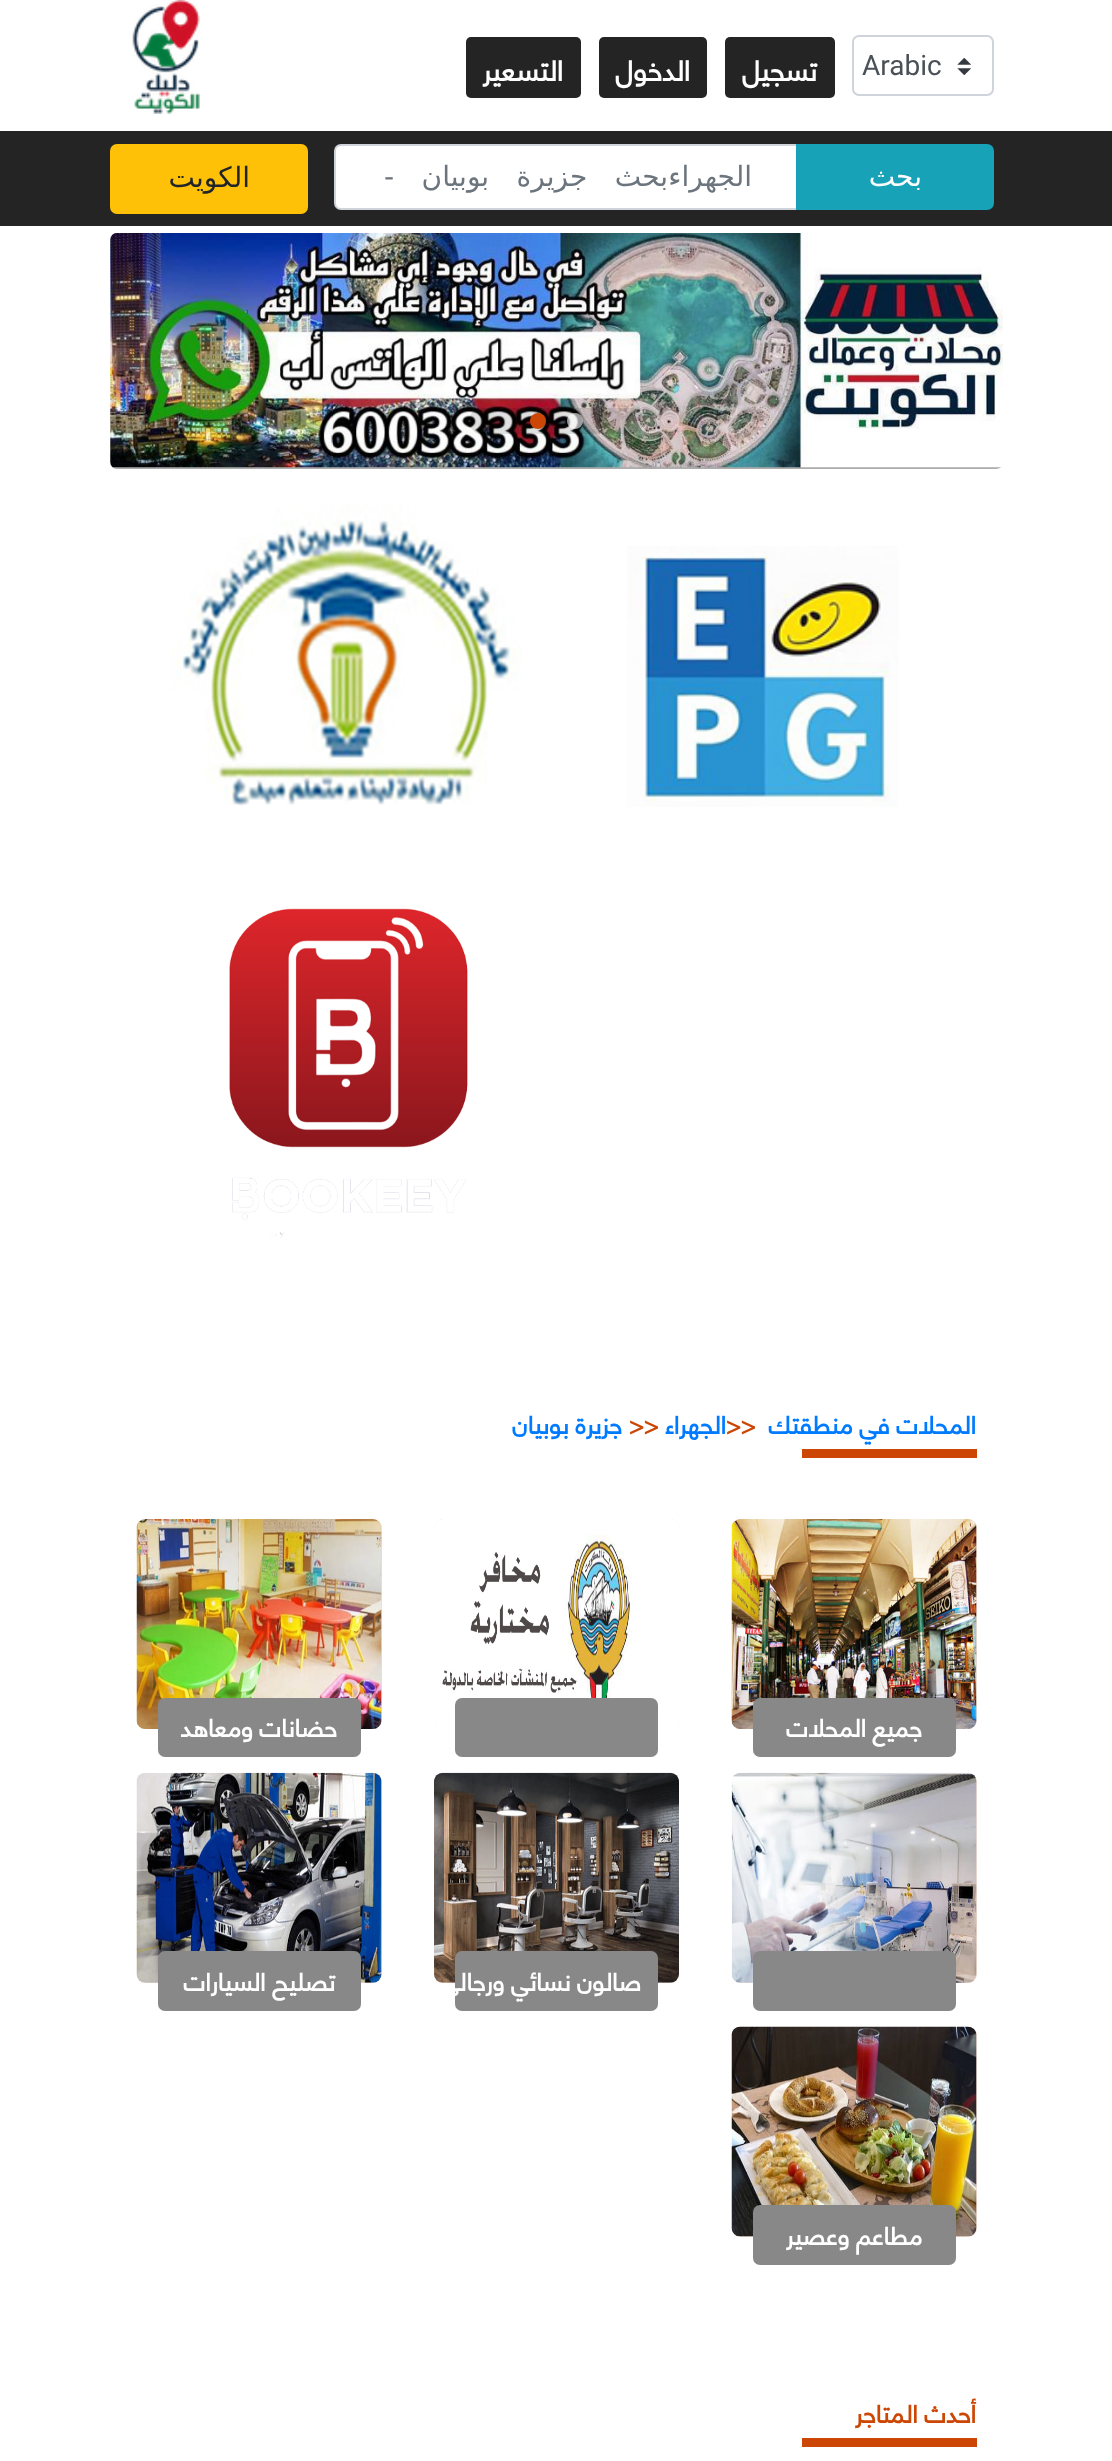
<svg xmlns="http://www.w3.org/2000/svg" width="1112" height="2461">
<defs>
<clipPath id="clip1"><rect x="110" y="233" width="893" height="236" rx="7"/></clipPath>
<clipPath id="clip2"><rect x="455" y="1951" width="203" height="60" rx="7"/></clipPath>
</defs>
<rect width="100%" height="100%" fill="#fff"/>
<image x="957" y="58" width="14" height="17" href="media/1.png"/>
<rect x="853" y="36" width="140" height="59" rx="6" fill="none" stroke="#ced4da" stroke-width="2"/>
<text x="862" y="75" style="font-family:Roboto;font-size:28px;fill:#495057">Arabic</text>
<rect x="725" y="37" width="110" height="61" rx="5" fill="#242424"/>
<text x="817" y="81" style="font-family:'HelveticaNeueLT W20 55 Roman';font-size:28px;font-weight:bold;direction:rtl;fill:#fff">تسجيل</text>
<rect x="599" y="37" width="108" height="61" rx="5" fill="#242424"/>
<text x="690" y="81" style="font-family:'HelveticaNeueLT W20 55 Roman';font-size:28px;font-weight:bold;direction:rtl;fill:#fff">الدخول</text>
<rect x="466" y="37" width="115" height="61" rx="5" fill="#242424"/>
<text x="563" y="81" style="font-family:'HelveticaNeueLT W20 55 Roman';font-size:28px;font-weight:bold;direction:rtl;fill:#fff">التسعير</text>
<image x="132" y="0" width="68" height="114" href="media/2.png"/>
<rect y="131" width="1112" height="95" fill="#242424"/>
<path d="M341 145h456v64h-456c-3.5 0-6-2.5-6-6v-52c0-3.5 2.5-6 6-6z" fill="#fff" stroke="#ced4da" stroke-width="2"/>
<path d="M797 145h190c3.5 0 6 2.5 6 6v52c0 3.5-2.5 6-6 6h-190z" fill="#17a2b8" stroke="#17a2b8" stroke-width="2"/>
<text x="922" y="186" style="font-family:DejaVu Sans;font-size:28px;direction:rtl;fill:#fff">بحث</text>
<text x="752" y="186" style="font-family:DejaVu Sans;font-size:28px;direction:rtl;fill:#6c757d">الجهراء</text>
<text x="668" y="186" word-spacing="18.5" style="font-family:DejaVu Sans;font-size:28px;direction:rtl;fill:#6c757d">بحث جزيرة بوبيان -</text>
<rect x="111" y="145" width="196" height="68" rx="6" fill="#ffc107" stroke="#ffc107" stroke-width="2"/>
<text x="250" y="187" style="font-family:DejaVu Sans;font-size:28px;direction:rtl;fill:#212529">الكويت</text>
<g clip-path="url(#clip1)">
<rect x="110" y="467" width="893" height="2" fill="#acacac"/>
</g>
<image x="110" y="233" width="893" height="235" href="media/3.png"/>
<rect x="469" y="408" width="175" height="26" rx="13" fill="#0000001a"/>
<circle cx="575" cy="421" r="8" fill="#ffffff99"/>
<circle cx="538" cy="421" r="8" fill="#cc4605"/>
<image x="627" y="546" width="272" height="261" href="media/4.png"/>
<image x="171" y="504" width="351" height="302" href="media/5.png"/>
<image x="229" y="908" width="239" height="330" href="media/6.png"/>
<text x="976" y="1434" style="font-family:'HelveticaNeueLT W20 55 Roman';font-size:24.5px;font-weight:bold;direction:rtl;fill:#007bff">المحلات في منطقتك</text>
<text x="726" y="1434" style="font-family:'HelveticaNeueLT W20 55 Roman';font-size:24.5px;font-weight:bold;fill:#cc4605">&gt;&gt;</text>
<text x="726" y="1434" style="font-family:'HelveticaNeueLT W20 55 Roman';font-size:24.5px;font-weight:bold;direction:rtl;fill:#007bff">الجهراء</text>
<text x="629" y="1434" style="font-family:'HelveticaNeueLT W20 55 Roman';font-size:24.5px;font-weight:bold;fill:#cc4605">&gt;&gt;</text>
<text x="622" y="1434" style="font-family:'HelveticaNeueLT W20 55 Roman';font-size:24.5px;font-weight:bold;direction:rtl;fill:#007bff">جزيرة بوبيان</text>
<rect x="802" y="1449" width="175" height="9" fill="#cc4605"/>
<rect x="732" y="1519" width="245" height="210" rx="9" fill="#f1dbd2"/>
<image x="731" y="1519" width="246" height="210" href="media/7.png"/>
<rect x="753" y="1698" width="203" height="59" rx="7" fill="#888"/>
<text x="922" y="1737" style="font-family:'HelveticaNeueLT W20 55 Roman';font-size:24.5px;font-weight:bold;direction:rtl;fill:#fff">جميع المحلات</text>
<rect x="434" y="1519" width="245" height="210" rx="9" fill="#f1dbd2"/>
<image x="434" y="1519" width="245" height="210" href="media/8.png"/>
<rect x="455" y="1698" width="203" height="59" rx="7" fill="#888"/>
<rect x="137" y="1519" width="245" height="210" rx="9" fill="#f1dbd2"/>
<image x="136" y="1519" width="246" height="210" href="media/9.png"/>
<rect x="158" y="1698" width="203" height="59" rx="7" fill="#888"/>
<text x="337" y="1737" style="font-family:'HelveticaNeueLT W20 55 Roman';font-size:24.5px;font-weight:bold;direction:rtl;fill:#fff">حضانات ومعاهد</text>
<rect x="732" y="1773" width="245" height="210" rx="9" fill="#f1dbd2"/>
<image x="731" y="1772" width="246" height="211" href="media/10.png"/>
<rect x="753" y="1951" width="203" height="60" rx="7" fill="#888"/>
<rect x="434" y="1773" width="245" height="210" rx="9" fill="#f1dbd2"/>
<image x="434" y="1772" width="245" height="211" href="media/11.png"/>
<rect x="455" y="1951" width="203" height="60" rx="7" fill="#888"/>
<g clip-path="url(#clip2)">
<text x="641" y="1991" style="font-family:'HelveticaNeueLT W20 55 Roman';font-size:24.5px;font-weight:bold;direction:rtl;fill:#fff">صالون نسائي ورجالي</text>
</g>
<rect x="137" y="1773" width="245" height="210" rx="9" fill="#f1dbd2"/>
<image x="136" y="1772" width="246" height="211" href="media/12.png"/>
<rect x="158" y="1951" width="203" height="60" rx="7" fill="#888"/>
<text x="335" y="1991" style="font-family:'HelveticaNeueLT W20 55 Roman';font-size:24.5px;font-weight:bold;direction:rtl;fill:#fff">تصليح السيارات</text>
<rect x="732" y="2027" width="245" height="210" rx="9" fill="#f1dbd2"/>
<image x="731" y="2026" width="246" height="211" href="media/13.png"/>
<rect x="753" y="2205" width="203" height="60" rx="7" fill="#888"/>
<text x="922" y="2245" style="font-family:'HelveticaNeueLT W20 55 Roman';font-size:24.5px;font-weight:bold;direction:rtl;fill:#fff">مطاعم وعصير</text>
<text x="976" y="2423" style="font-family:'HelveticaNeueLT W20 55 Roman';font-size:24.5px;font-weight:bold;direction:rtl;fill:#cc4605">أحدث المتاجر</text>
<rect x="802" y="2438" width="175" height="9" fill="#cc4605"/>
</svg>
